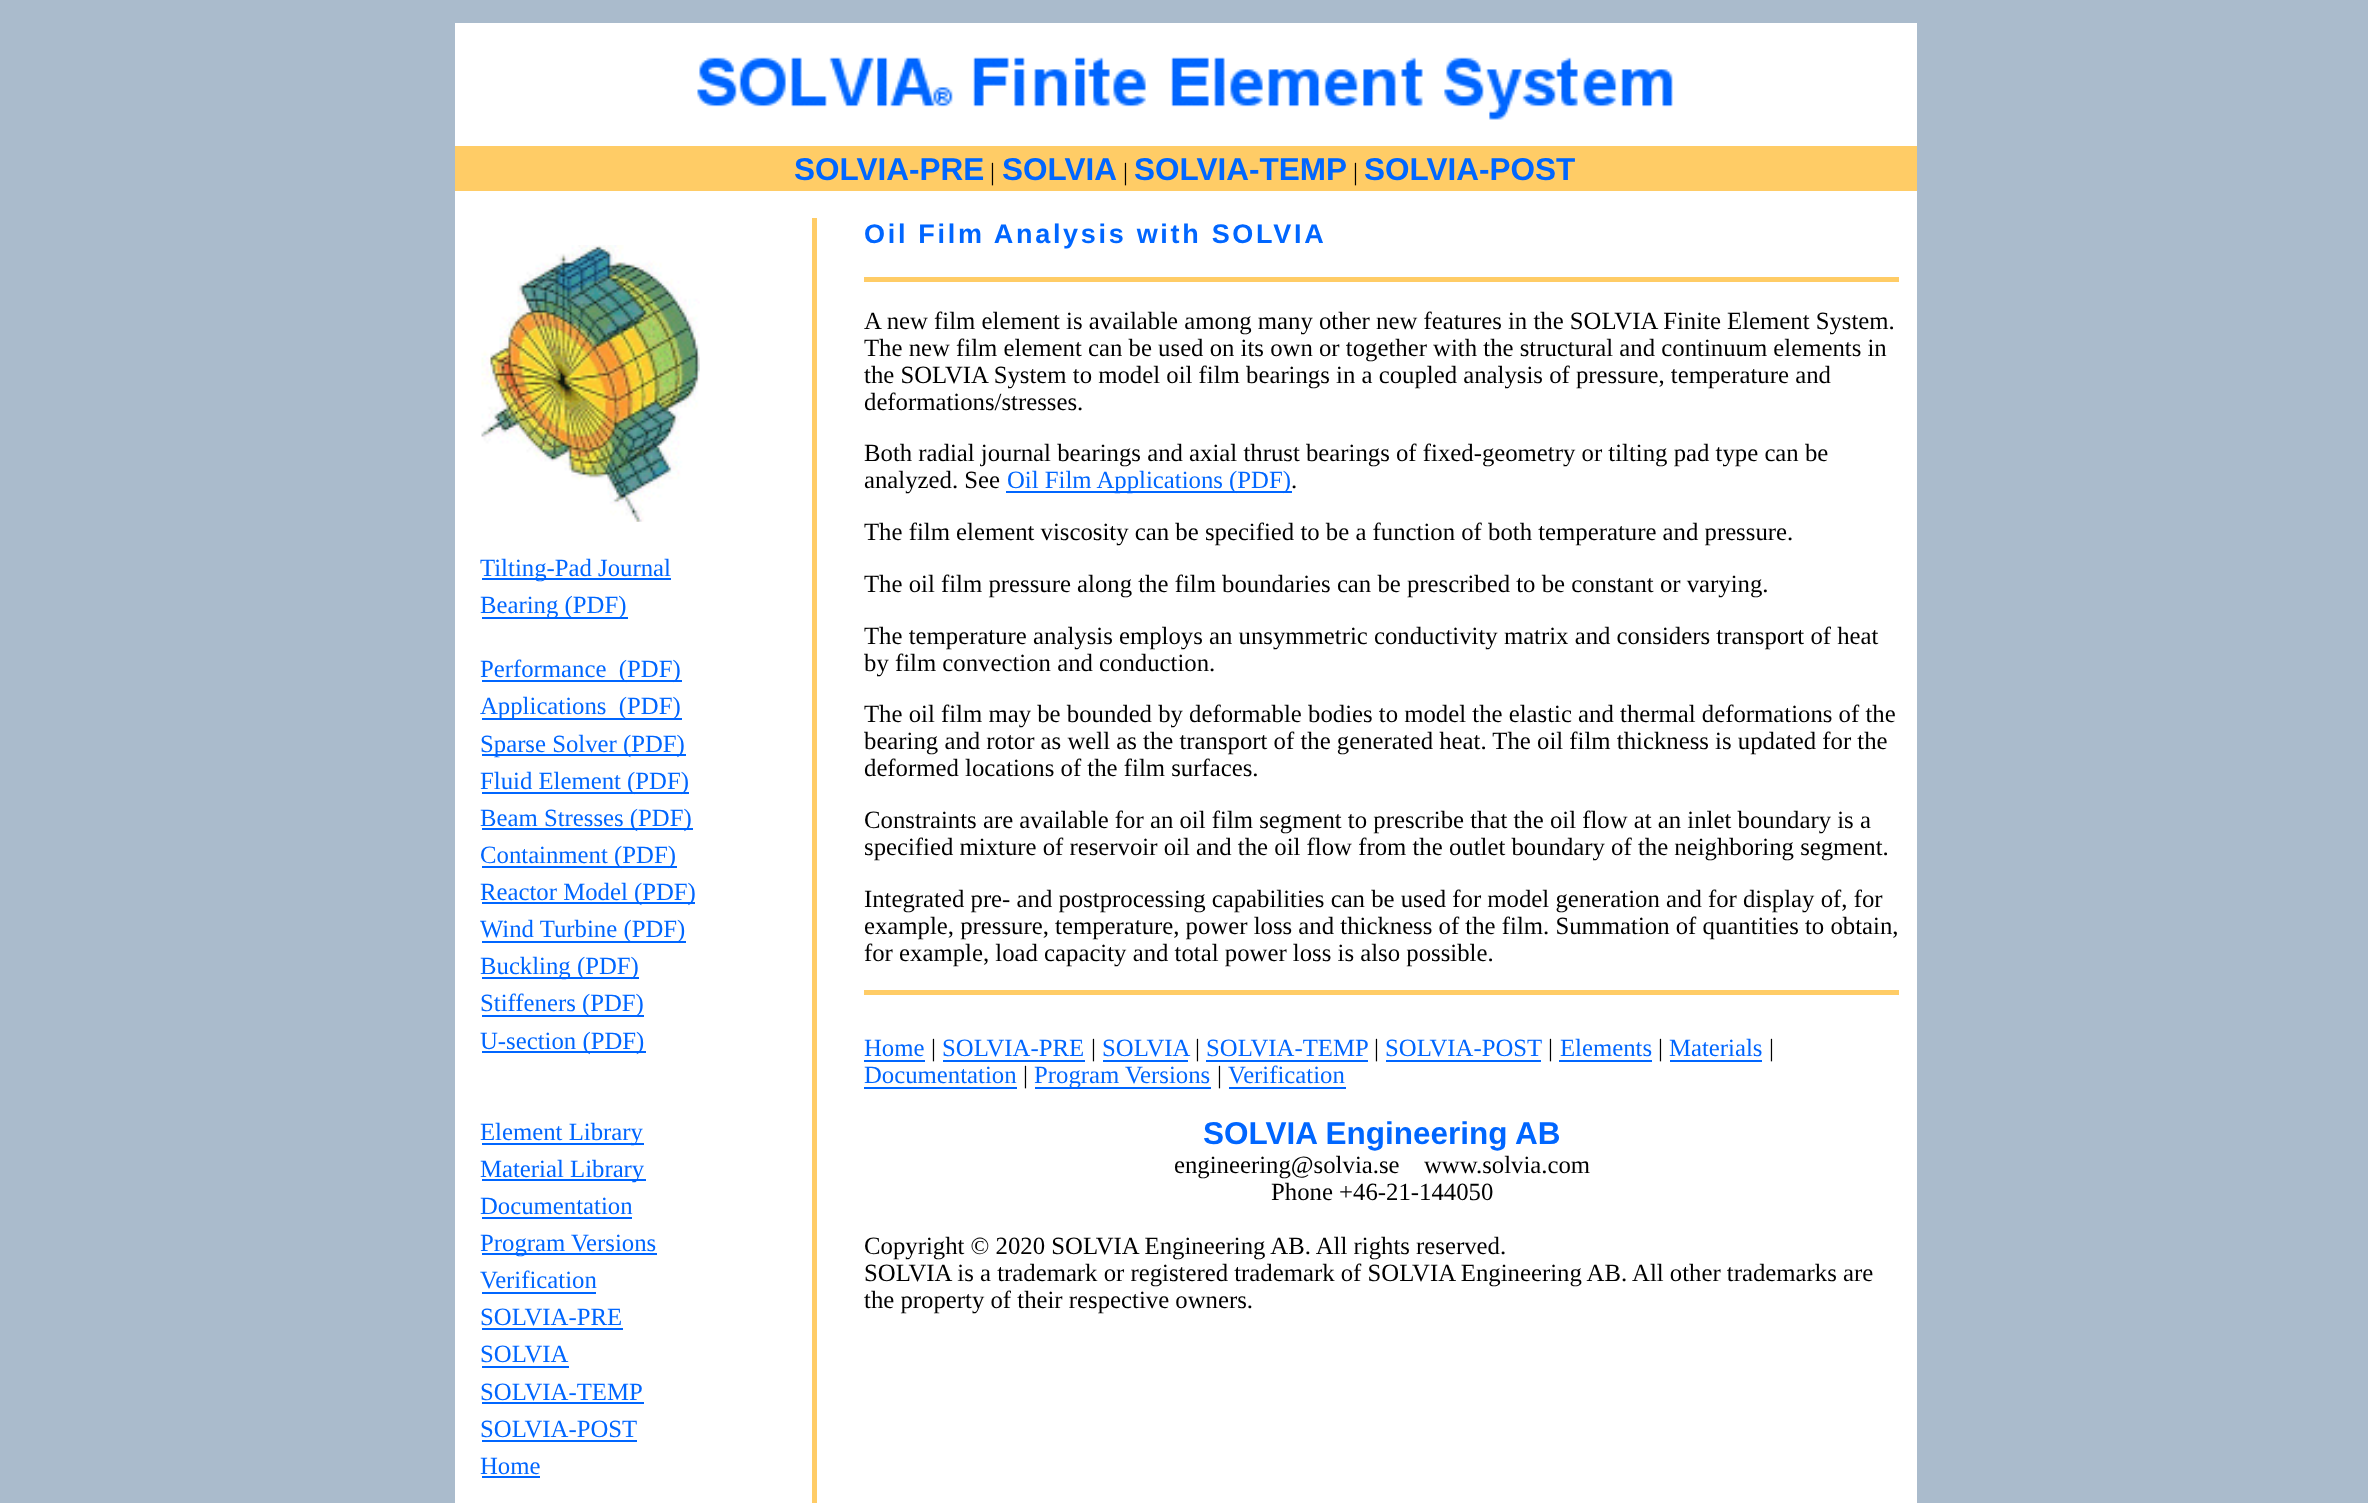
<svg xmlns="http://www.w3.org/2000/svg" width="2368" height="1503">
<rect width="100%" height="100%" fill="#abc"/>
<rect x="455" y="23" width="1462" height="123" fill="#fff"/>
<image x="697" y="57" width="976" height="63" href="media/1.png"/>
<rect x="455" y="146" width="1462" height="45" fill="#fc6"/>
<text x="794" y="180" style="font-family:Liberation Sans;font-size:31.5px;font-weight:bold;fill:#06f">SOLVIA-PRE</text>
<text x="990" y="180" style="font-family:Liberation Serif;font-size:24.75px;fill:#000">|</text>
<text x="1002" y="180" style="font-family:Liberation Sans;font-size:31.5px;font-weight:bold;fill:#06f">SOLVIA</text>
<text x="1123" y="180" style="font-family:Liberation Serif;font-size:24.75px;fill:#000">|</text>
<text x="1134" y="180" style="font-family:Liberation Sans;font-size:31.5px;font-weight:bold;fill:#06f">SOLVIA-TEMP</text>
<text x="1353" y="180" style="font-family:Liberation Serif;font-size:24.75px;fill:#000">|</text>
<text x="1364" y="180" style="font-family:Liberation Sans;font-size:31.5px;font-weight:bold;fill:#06f">SOLVIA-POST</text>
<rect x="455" y="191" width="1462" height="27" fill="#fff"/>
<rect x="812" y="218" width="5" height="1285" fill="#fc6"/>
<rect x="817" y="218" width="1100" height="1285" fill="#fff"/>
<rect x="455" y="218" width="357" height="1285" fill="#fff"/>
<image x="481" y="245" width="219" height="277" href="media/2.png"/>
<rect x="482" y="578" width="189" height="2" fill="#06f"/>
<text x="480" y="576" style="font-family:Liberation Serif;font-size:24.75px;fill:#06f">Tilting-Pad Journal</text>
<rect x="482" y="617" width="146" height="2" fill="#06f"/>
<text x="480" y="613" style="font-family:Liberation Serif;font-size:24.75px;fill:#06f">Bearing (PDF)</text>
<rect x="482" y="680" width="200" height="2" fill="#06f"/>
<text x="480" y="677" style="font-family:Liberation Serif;font-size:24.75px;fill:#06f" xml:space="preserve">Performance  (PDF)</text>
<rect x="482" y="718" width="200" height="2" fill="#06f"/>
<text x="480" y="714" style="font-family:Liberation Serif;font-size:24.75px;fill:#06f" xml:space="preserve">Applications  (PDF)</text>
<rect x="482" y="754" width="204" height="2" fill="#06f"/>
<text x="480" y="752" style="font-family:Liberation Serif;font-size:24.75px;fill:#06f">Sparse Solver (PDF)</text>
<rect x="482" y="792" width="207" height="2" fill="#06f"/>
<text x="480" y="789" style="font-family:Liberation Serif;font-size:24.75px;fill:#06f">Fluid Element (PDF)</text>
<rect x="482" y="828" width="211" height="2" fill="#06f"/>
<text x="480" y="826" style="font-family:Liberation Serif;font-size:24.75px;fill:#06f">Beam Stresses (PDF)</text>
<rect x="482" y="866" width="195" height="2" fill="#06f"/>
<text x="480" y="863" style="font-family:Liberation Serif;font-size:24.75px;fill:#06f">Containment (PDF)</text>
<rect x="482" y="902" width="213" height="2" fill="#06f"/>
<text x="480" y="900" style="font-family:Liberation Serif;font-size:24.75px;fill:#06f">Reactor Model (PDF)</text>
<rect x="482" y="941" width="204" height="2" fill="#06f"/>
<text x="480" y="937" style="font-family:Liberation Serif;font-size:24.75px;fill:#06f">Wind Turbine (PDF)</text>
<rect x="482" y="977" width="157" height="2" fill="#06f"/>
<text x="480" y="974" style="font-family:Liberation Serif;font-size:24.75px;fill:#06f">Buckling (PDF)</text>
<rect x="482" y="1015" width="162" height="2" fill="#06f"/>
<text x="480" y="1011" style="font-family:Liberation Serif;font-size:24.75px;fill:#06f">Stiffeners (PDF)</text>
<rect x="482" y="1051" width="164" height="2" fill="#06f"/>
<text x="480" y="1049" style="font-family:Liberation Serif;font-size:24.75px;fill:#06f">U-section (PDF)</text>
<rect x="482" y="1143" width="162" height="2" fill="#06f"/>
<text x="480" y="1140" style="font-family:Liberation Serif;font-size:24.75px;fill:#06f">Element Library</text>
<rect x="482" y="1179" width="164" height="2" fill="#06f"/>
<text x="480" y="1177" style="font-family:Liberation Serif;font-size:24.75px;fill:#06f">Material Library</text>
<text x="480" y="1214" style="font-family:Liberation Serif;font-size:24.75px;fill:#06f">Documentation</text>
<rect x="482" y="1217" width="150" height="2" fill="#06f"/>
<rect x="482" y="1253" width="175" height="2" fill="#06f"/>
<text x="480" y="1251" style="font-family:Liberation Serif;font-size:24.75px;fill:#06f">Program Versions</text>
<text x="480" y="1288" style="font-family:Liberation Serif;font-size:24.75px;fill:#06f">Verification</text>
<rect x="482" y="1292" width="114" height="2" fill="#06f"/>
<text x="480" y="1325" style="font-family:Liberation Serif;font-size:24.75px;fill:#06f">SOLVIA-PRE</text>
<rect x="482" y="1328" width="141" height="2" fill="#06f"/>
<text x="480" y="1362" style="font-family:Liberation Serif;font-size:24.75px;fill:#06f">SOLVIA</text>
<rect x="482" y="1366" width="87" height="2" fill="#06f"/>
<text x="480" y="1400" style="font-family:Liberation Serif;font-size:24.75px;fill:#06f">SOLVIA-TEMP</text>
<rect x="482" y="1402" width="162" height="2" fill="#06f"/>
<text x="480" y="1437" style="font-family:Liberation Serif;font-size:24.75px;fill:#06f">SOLVIA-POST</text>
<rect x="482" y="1440" width="155" height="2" fill="#06f"/>
<text x="480" y="1474" style="font-family:Liberation Serif;font-size:24.75px;fill:#06f">Home</text>
<rect x="482" y="1476" width="58" height="2" fill="#06f"/>
<text x="864" y="243" style="font-family:Liberation Sans;font-size:27px;font-weight:bold;letter-spacing:2.7px;fill:#06f">Oil Film Analysis with SOLVIA</text>
<rect x="864" y="277" width="1035" height="5" fill="#fc6"/>
<text x="864" y="329" style="font-family:Liberation Serif;font-size:24.75px;fill:#000">A new film element is available among many other new features in the SOLVIA Finite Element System.</text>
<text x="864" y="356" style="font-family:Liberation Serif;font-size:24.75px;fill:#000">The new film element can be used on its own or together with the structural and continuum elements in</text>
<text x="864" y="383" style="font-family:Liberation Serif;font-size:24.75px;fill:#000">the SOLVIA System to model oil film bearings in a coupled analysis of pressure, temperature and</text>
<text x="864" y="410" style="font-family:Liberation Serif;font-size:24.75px;fill:#000">deformations/stresses.</text>
<text x="864" y="461" style="font-family:Liberation Serif;font-size:24.75px;fill:#000">Both radial journal bearings and axial thrust bearings of fixed-geometry or tilting pad type can be</text>
<text x="864" y="488" style="font-family:Liberation Serif;font-size:24.75px;fill:#000">analyzed. See</text>
<rect x="1006" y="491" width="286" height="2" fill="#06f"/>
<text x="1007" y="488" style="font-family:Liberation Serif;font-size:24.75px;fill:#06f">Oil Film Applications (PDF)</text>
<text x="1291" y="488" style="font-family:Liberation Serif;font-size:24.75px;fill:#000">.</text>
<text x="864" y="540" style="font-family:Liberation Serif;font-size:24.75px;fill:#000">The film element viscosity can be specified to be a function of both temperature and pressure.</text>
<text x="864" y="592" style="font-family:Liberation Serif;font-size:24.75px;fill:#000">The oil film pressure along the film boundaries can be prescribed to be constant or varying.</text>
<text x="864" y="644" style="font-family:Liberation Serif;font-size:24.75px;fill:#000">The temperature analysis employs an unsymmetric conductivity matrix and considers transport of heat</text>
<text x="864" y="671" style="font-family:Liberation Serif;font-size:24.75px;fill:#000">by film convection and conduction.</text>
<text x="864" y="722" style="font-family:Liberation Serif;font-size:24.75px;fill:#000">The oil film may be bounded by deformable bodies to model the elastic and thermal deformations of the</text>
<text x="864" y="749" style="font-family:Liberation Serif;font-size:24.75px;fill:#000">bearing and rotor as well as the transport of the generated heat. The oil film thickness is updated for the</text>
<text x="864" y="776" style="font-family:Liberation Serif;font-size:24.75px;fill:#000">deformed locations of the film surfaces.</text>
<text x="864" y="828" style="font-family:Liberation Serif;font-size:24.75px;fill:#000">Constraints are available for an oil film segment to prescribe that the oil flow at an inlet boundary is a</text>
<text x="864" y="855" style="font-family:Liberation Serif;font-size:24.75px;fill:#000">specified mixture of reservoir oil and the oil flow from the outlet boundary of the neighboring segment.</text>
<text x="864" y="907" style="font-family:Liberation Serif;font-size:24.75px;fill:#000">Integrated pre- and postprocessing capabilities can be used for model generation and for display of, for</text>
<text x="864" y="934" style="font-family:Liberation Serif;font-size:24.75px;fill:#000">example, pressure, temperature, power loss and thickness of the film. Summation of quantities to obtain,</text>
<text x="864" y="961" style="font-family:Liberation Serif;font-size:24.75px;fill:#000">for example, load capacity and total power loss is also possible.</text>
<rect x="864" y="990" width="1035" height="5" fill="#fc6"/>
<text x="864" y="1056" style="font-family:Liberation Serif;font-size:24.75px;fill:#06f">Home</text>
<rect x="864" y="1060" width="61" height="2" fill="#06f"/>
<text x="931" y="1056" style="font-family:Liberation Serif;font-size:24.75px;fill:#000">|</text>
<text x="942" y="1056" style="font-family:Liberation Serif;font-size:24.75px;fill:#06f">SOLVIA-PRE</text>
<rect x="943" y="1060" width="142" height="2" fill="#06f"/>
<text x="1091" y="1056" style="font-family:Liberation Serif;font-size:24.75px;fill:#000">|</text>
<text x="1102" y="1056" style="font-family:Liberation Serif;font-size:24.75px;fill:#06f">SOLVIA</text>
<rect x="1103" y="1060" width="85" height="2" fill="#06f"/>
<text x="1195" y="1056" style="font-family:Liberation Serif;font-size:24.75px;fill:#000">|</text>
<text x="1206" y="1056" style="font-family:Liberation Serif;font-size:24.75px;fill:#06f">SOLVIA-TEMP</text>
<rect x="1206" y="1060" width="162" height="2" fill="#06f"/>
<text x="1374" y="1056" style="font-family:Liberation Serif;font-size:24.75px;fill:#000">|</text>
<text x="1385" y="1056" style="font-family:Liberation Serif;font-size:24.75px;fill:#06f">SOLVIA-POST</text>
<rect x="1386" y="1060" width="155" height="2" fill="#06f"/>
<text x="1548" y="1056" style="font-family:Liberation Serif;font-size:24.75px;fill:#000">|</text>
<text x="1560" y="1056" style="font-family:Liberation Serif;font-size:24.75px;fill:#06f">Elements</text>
<rect x="1559" y="1060" width="93" height="2" fill="#06f"/>
<text x="1658" y="1056" style="font-family:Liberation Serif;font-size:24.75px;fill:#000">|</text>
<text x="1669" y="1056" style="font-family:Liberation Serif;font-size:24.75px;fill:#06f">Materials</text>
<rect x="1670" y="1060" width="92" height="2" fill="#06f"/>
<text x="1769" y="1056" style="font-family:Liberation Serif;font-size:24.75px;fill:#000">|</text>
<text x="864" y="1083" style="font-family:Liberation Serif;font-size:24.75px;fill:#06f">Documentation</text>
<rect x="864" y="1087" width="153" height="2" fill="#06f"/>
<text x="1023" y="1083" style="font-family:Liberation Serif;font-size:24.75px;fill:#000">|</text>
<rect x="1035" y="1087" width="176" height="2" fill="#06f"/>
<text x="1034" y="1083" style="font-family:Liberation Serif;font-size:24.75px;fill:#06f">Program Versions</text>
<text x="1217" y="1083" style="font-family:Liberation Serif;font-size:24.75px;fill:#000">|</text>
<text x="1228" y="1083" style="font-family:Liberation Serif;font-size:24.75px;fill:#06f">Verification</text>
<rect x="1229" y="1087" width="117" height="2" fill="#06f"/>
<text x="1203" y="1144" style="font-family:Liberation Sans;font-size:31.5px;font-weight:bold;fill:#06f">SOLVIA Engineering AB</text>
<text x="1174" y="1173" style="font-family:Liberation Serif;font-size:24.75px;fill:#000">engineering@solvia.se</text>
<text x="1424" y="1173" style="font-family:Liberation Serif;font-size:24.75px;fill:#000">www.solvia.com</text>
<text x="1271" y="1200" style="font-family:Liberation Serif;font-size:24.75px;fill:#000">Phone +46-21-144050</text>
<text x="864" y="1254" style="font-family:Liberation Serif;font-size:24.75px;fill:#000">Copyright © 2020 SOLVIA Engineering AB. All rights reserved.</text>
<text x="864" y="1281" style="font-family:Liberation Serif;font-size:24.75px;fill:#000">SOLVIA is a trademark or registered trademark of SOLVIA Engineering AB. All other trademarks are</text>
<text x="864" y="1308" style="font-family:Liberation Serif;font-size:24.75px;fill:#000">the property of their respective owners.</text>
</svg>
